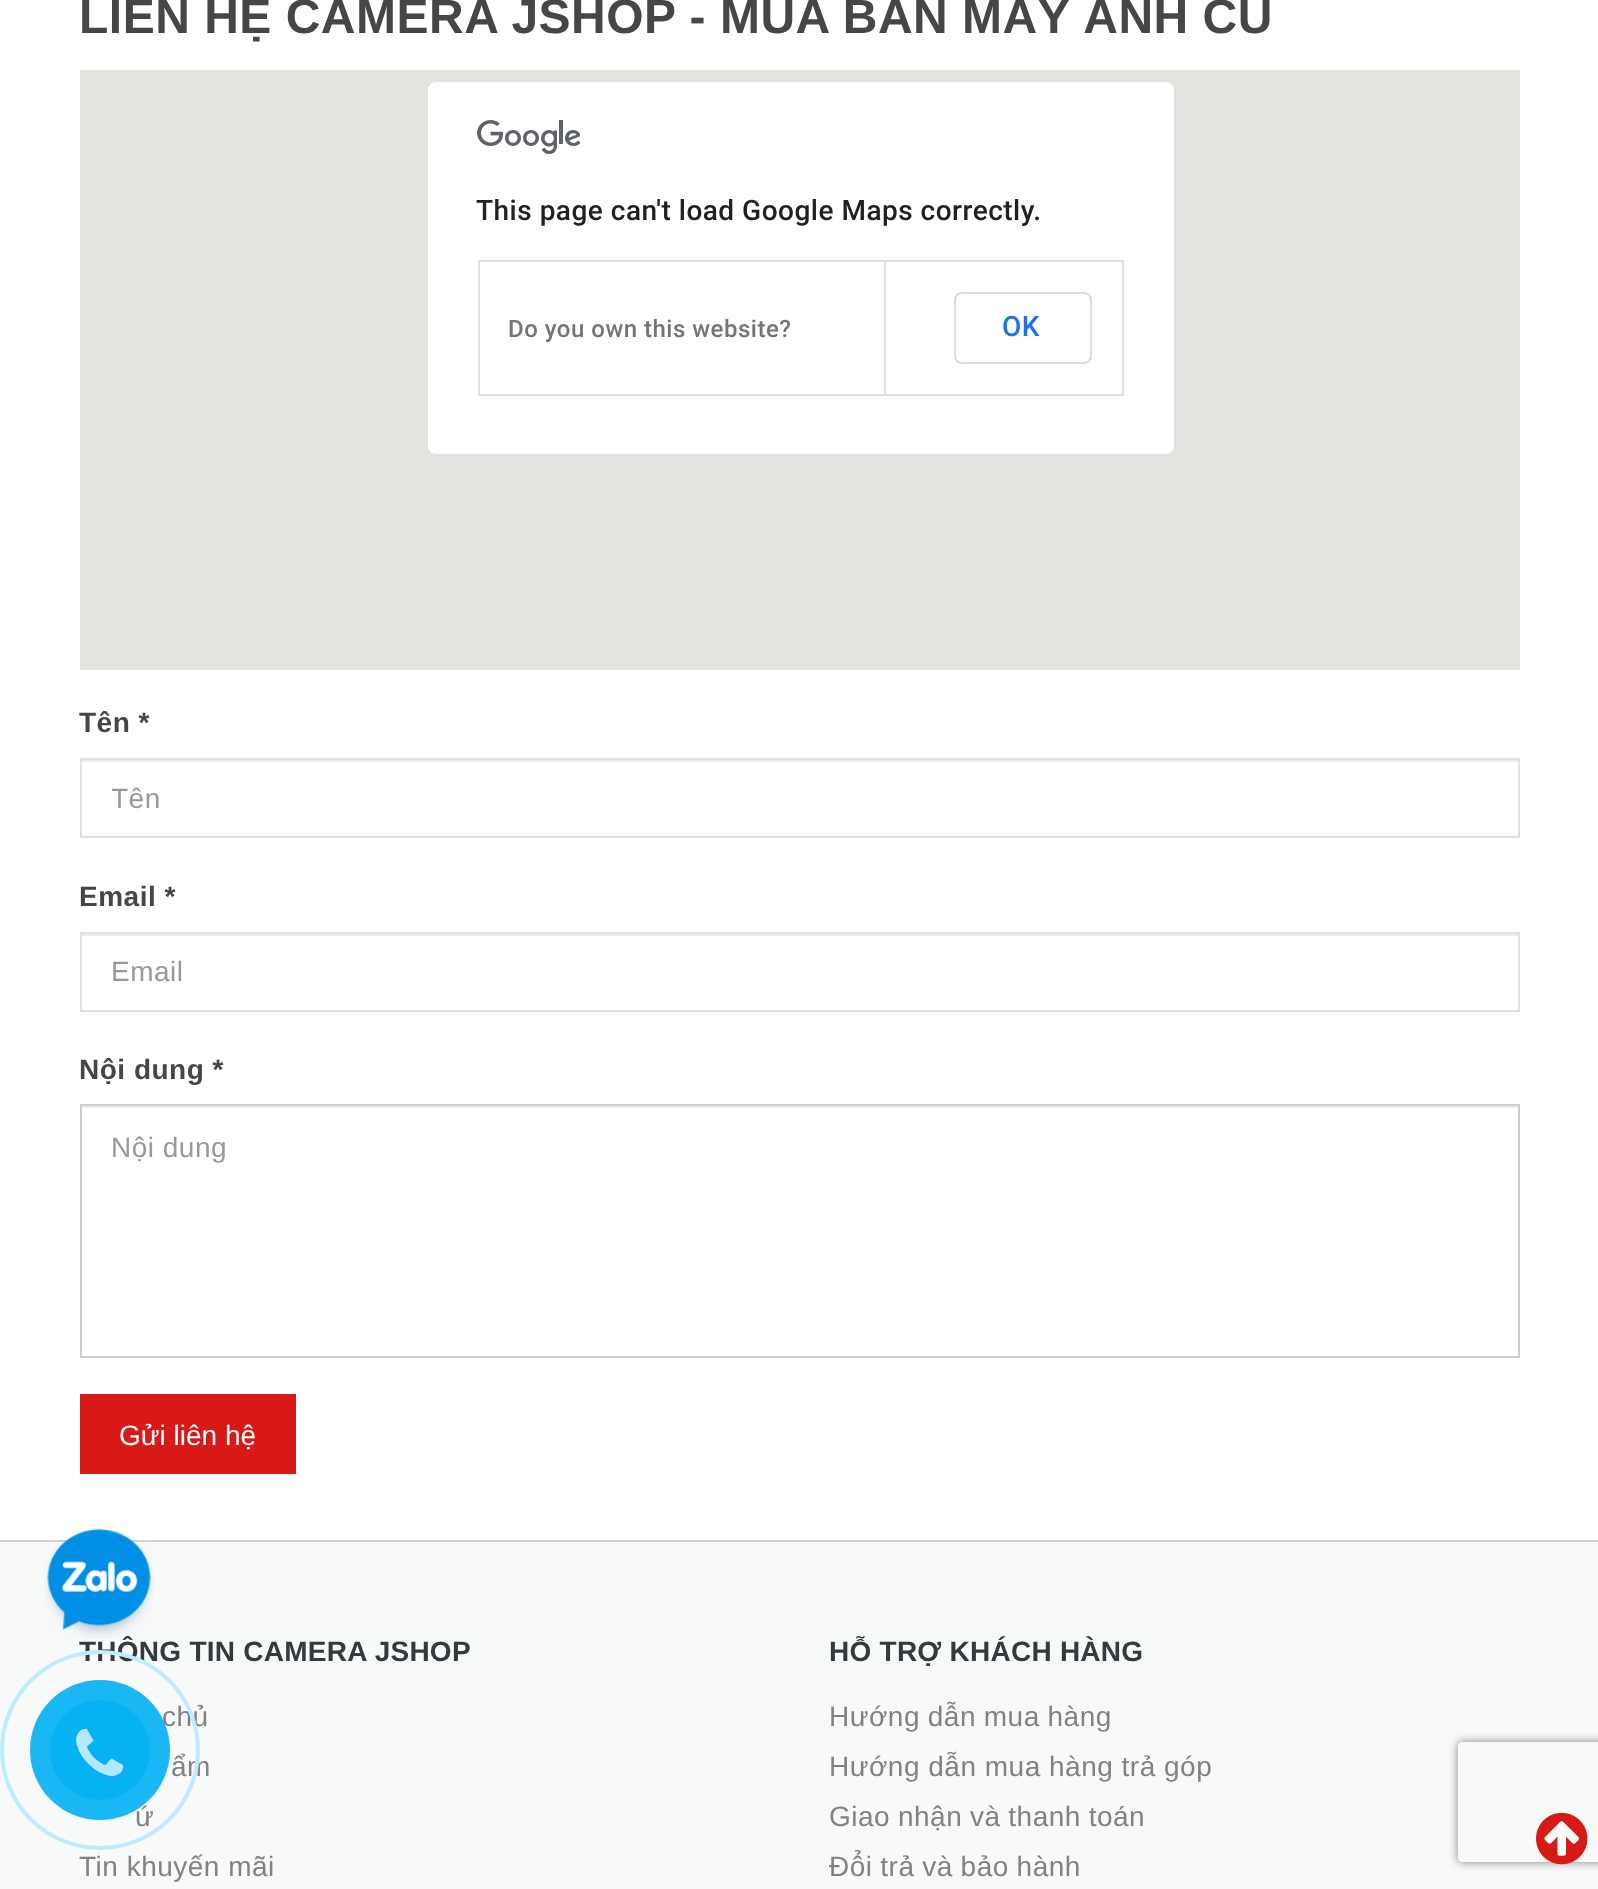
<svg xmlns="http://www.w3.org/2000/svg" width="1598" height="1889">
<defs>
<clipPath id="clip1"><rect x="112" y="782" width="1376" height="32"/></clipPath>
<clipPath id="clip2"><path d="M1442 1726h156v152h-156zm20 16h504c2 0 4 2 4 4v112c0 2-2 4-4 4h-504c-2 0-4-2-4-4v-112c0-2 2-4 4-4z" clip-rule="evenodd"/></clipPath>
</defs>
<rect width="100%" height="100%" fill="#fff"/>
<text x="79" y="33" style="font-family:Liberation Sans;font-size:48px;font-weight:bold;letter-spacing:0.5px;fill:#464646">LIÊN HỆ CAMERA JSHOP - MUA BÁN MÁY ẢNH CŨ</text>
<rect x="80" y="70" width="1440" height="600" fill="#e5e3df"/>
<rect x="426" y="80" width="750" height="376" rx="10" fill="#fff"/>
<rect x="427" y="81" width="748" height="374" rx="9" fill="none" stroke="#0000001f" stroke-width="2"/>
<image x="477" y="120" width="103" height="34" href="media/1.png"/>
<text x="476" y="220" style="font-family:Roboto;font-size:28px;font-weight:500;letter-spacing:0.5px;fill:#212121">This page can't load Google Maps correctly.</text>
<rect x="884" y="260" width="240" height="2" fill="#e1e1e1"/>
<rect x="1122" y="260" width="2" height="136" fill="#e1e1e1"/>
<rect x="884" y="394" width="240" height="2" fill="#e1e1e1"/>
<rect x="884" y="260" width="2" height="136" fill="#e1e1e1"/>
<rect x="478" y="260" width="408" height="2" fill="#e1e1e1"/>
<rect x="478" y="394" width="408" height="2" fill="#e1e1e1"/>
<rect x="478" y="260" width="2" height="136" fill="#e1e1e1"/>
<text x="508" y="337" style="font-family:Roboto;font-size:24px;font-weight:500;letter-spacing:0.5px;fill:#757575">Do you own this website?</text>
<rect x="955" y="293" width="136" height="70" rx="7" fill="none" stroke="#dadce0" stroke-width="2"/>
<text x="1002" y="336" style="font-family:Roboto;font-size:28px;font-weight:500;letter-spacing:0.5px;fill:#1a73e8">OK</text>
<text x="79" y="732" style="font-family:Liberation Sans;font-size:28px;font-weight:bold;letter-spacing:0.5px;fill:#464646">Tên *</text>
<rect x="82" y="760" width="1436" height="2" fill="#ececec"/>
<rect x="81" y="759" width="1438" height="78" fill="none" stroke="#e1e1e1" stroke-width="2"/>
<g clip-path="url(#clip1)">
<text x="111" y="808" style="font-family:Liberation Sans;font-size:28px;letter-spacing:0.5px;fill:#999">Tên</text>
</g>
<text x="79" y="906" style="font-family:Liberation Sans;font-size:28px;font-weight:bold;letter-spacing:0.5px;fill:#464646">Email *</text>
<rect x="82" y="934" width="1436" height="2" fill="#ececec"/>
<rect x="81" y="933" width="1438" height="78" fill="none" stroke="#e1e1e1" stroke-width="2"/>
<text x="111" y="981" style="font-family:Liberation Sans;font-size:28px;letter-spacing:0.5px;fill:#999">Email</text>
<text x="79" y="1079" style="font-family:Liberation Sans;font-size:28px;font-weight:bold;letter-spacing:0.5px;fill:#464646">Nội dung *</text>
<rect x="82" y="1106" width="1436" height="2" fill="#ececec"/>
<rect x="81" y="1105" width="1438" height="252" fill="none" stroke="#ccc" stroke-width="2"/>
<text x="111" y="1157" style="font-family:Liberation Sans;font-size:28px;letter-spacing:0.5px;fill:#999">Nội dung</text>
<rect x="80" y="1394" width="216" height="80" fill="#d91818"/>
<text x="119" y="1445" style="font-family:Liberation Sans;font-size:28px;fill:#fff">Gửi liên hệ</text>
<rect y="1542" width="1598" height="347" fill="#f8f9f9"/>
<rect y="1540" width="1598" height="2" fill="#d4d4d4"/>
<text x="79" y="1661" style="font-family:Liberation Sans;font-size:28px;font-weight:bold;letter-spacing:0.25px;fill:#323c3f">THÔNG TIN CAMERA JSHOP</text>
<image x="44" y="1528" width="110" height="111" href="media/2.png"/>
<text x="162" y="1726" style="font-family:Liberation Sans;font-size:28px;letter-spacing:0.5px;fill:#828282">chủ</text>
<text x="171" y="1776" style="font-family:Liberation Sans;font-size:28px;letter-spacing:0.5px;fill:#828282">ẩm</text>
<text x="135" y="1826" style="font-family:Liberation Sans;font-size:28px;letter-spacing:0.5px;fill:#828282">ứ</text>
<text x="79" y="1876" style="font-family:Liberation Sans;font-size:28px;letter-spacing:0.5px;fill:#828282">Tin khuyến mãi</text>
<text x="829" y="1661" style="font-family:Liberation Sans;font-size:28px;font-weight:bold;letter-spacing:0.25px;fill:#323c3f">HỖ TRỢ KHÁCH HÀNG</text>
<text x="829" y="1726" word-spacing="-0.5" style="font-family:Liberation Sans;font-size:28px;letter-spacing:0.5px;fill:#828282">Hướng dẫn mua hàng</text>
<text x="829" y="1776" style="font-family:Liberation Sans;font-size:28px;letter-spacing:0.5px;fill:#828282">Hướng dẫn mua hàng trả góp</text>
<text x="829" y="1826" word-spacing="-0.5" style="font-family:Liberation Sans;font-size:28px;letter-spacing:0.5px;fill:#828282">Giao nhận và thanh toán</text>
<text x="829" y="1876" word-spacing="-0.5" style="font-family:Liberation Sans;font-size:28px;letter-spacing:0.5px;fill:#828282">Đổi trả và bảo hành</text>
<g clip-path="url(#clip2)">
<rect x="1458" y="1742" width="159" height="120" rx="4" fill="#808080" filter="blur(5px)"/>
</g>
<image x="1536" y="1812" width="52" height="53" href="media/3.png"/>
<circle cx="100" cy="1750" r="98" fill="none" stroke="#bfebfc" stroke-width="4"/>
<circle cx="100" cy="1750" r="70" fill="#00aff2e6"/>
<circle cx="100" cy="1750" r="50" fill="#00aff2b3"/>
<image x="76" y="1728" width="48" height="48" href="media/4.png"/>
</svg>
